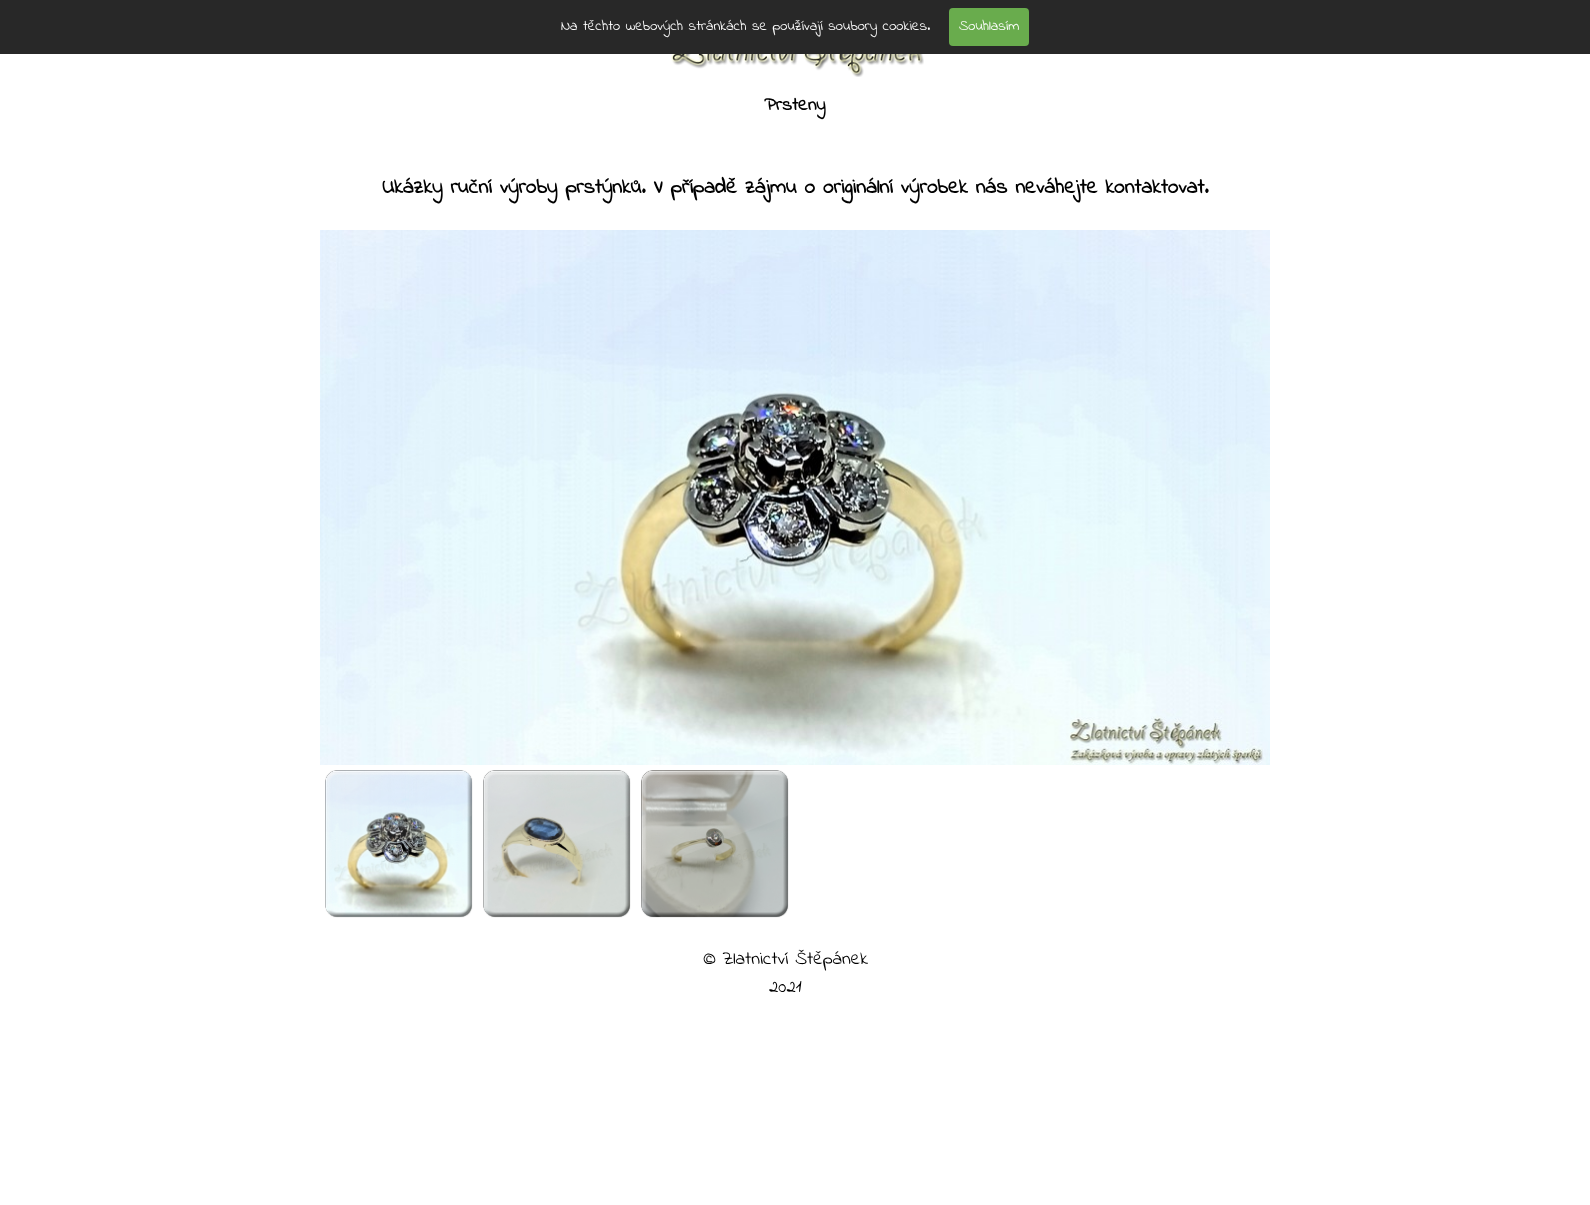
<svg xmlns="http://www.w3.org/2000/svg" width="1590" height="1205">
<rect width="100%" height="100%" fill="#fff"/>
<rect width="1590" height="54" fill="#282828"/>
<text x="561" y="30" style="font-family:Indie Flower;font-size:14.7px;fill:#fff">Na těchto webových stránkách se používají soubory cookies.</text>
<rect x="949" y="8" width="80" height="38" rx="4" fill="#69ac4d"/>
<text x="959" y="30" style="font-family:Indie Flower;font-size:14.7px;fill:#fff">Souhlasím</text>
<image x="671" y="54" width="253" height="23" href="media/1.png"/>
<text x="764" y="110" style="font-family:Indie Flower;font-size:18.75px;font-weight:bold;fill:#000">Prsteny</text>
<text x="382" y="193" style="font-family:Indie Flower;font-size:21.35px;font-weight:bold;fill:#000">Ukázky ruční výroby prstýnků. V případě zájmu o originální výrobek nás neváhejte kontaktovat.</text>
<image x="320" y="230" width="950" height="535" href="media/2.png"/>
<image x="325" y="770" width="148" height="148" href="media/3.png"/>
<image x="483" y="770" width="148" height="148" href="media/4.png"/>
<image x="641" y="770" width="148" height="148" href="media/5.png"/>
<text x="703" y="964" style="font-family:Indie Flower;font-size:18.75px;fill:#000">© Zlatnictví Štěpánek</text>
<text x="769" y="992" style="font-family:Indie Flower;font-size:18.75px;fill:#000">2021</text>
</svg>
